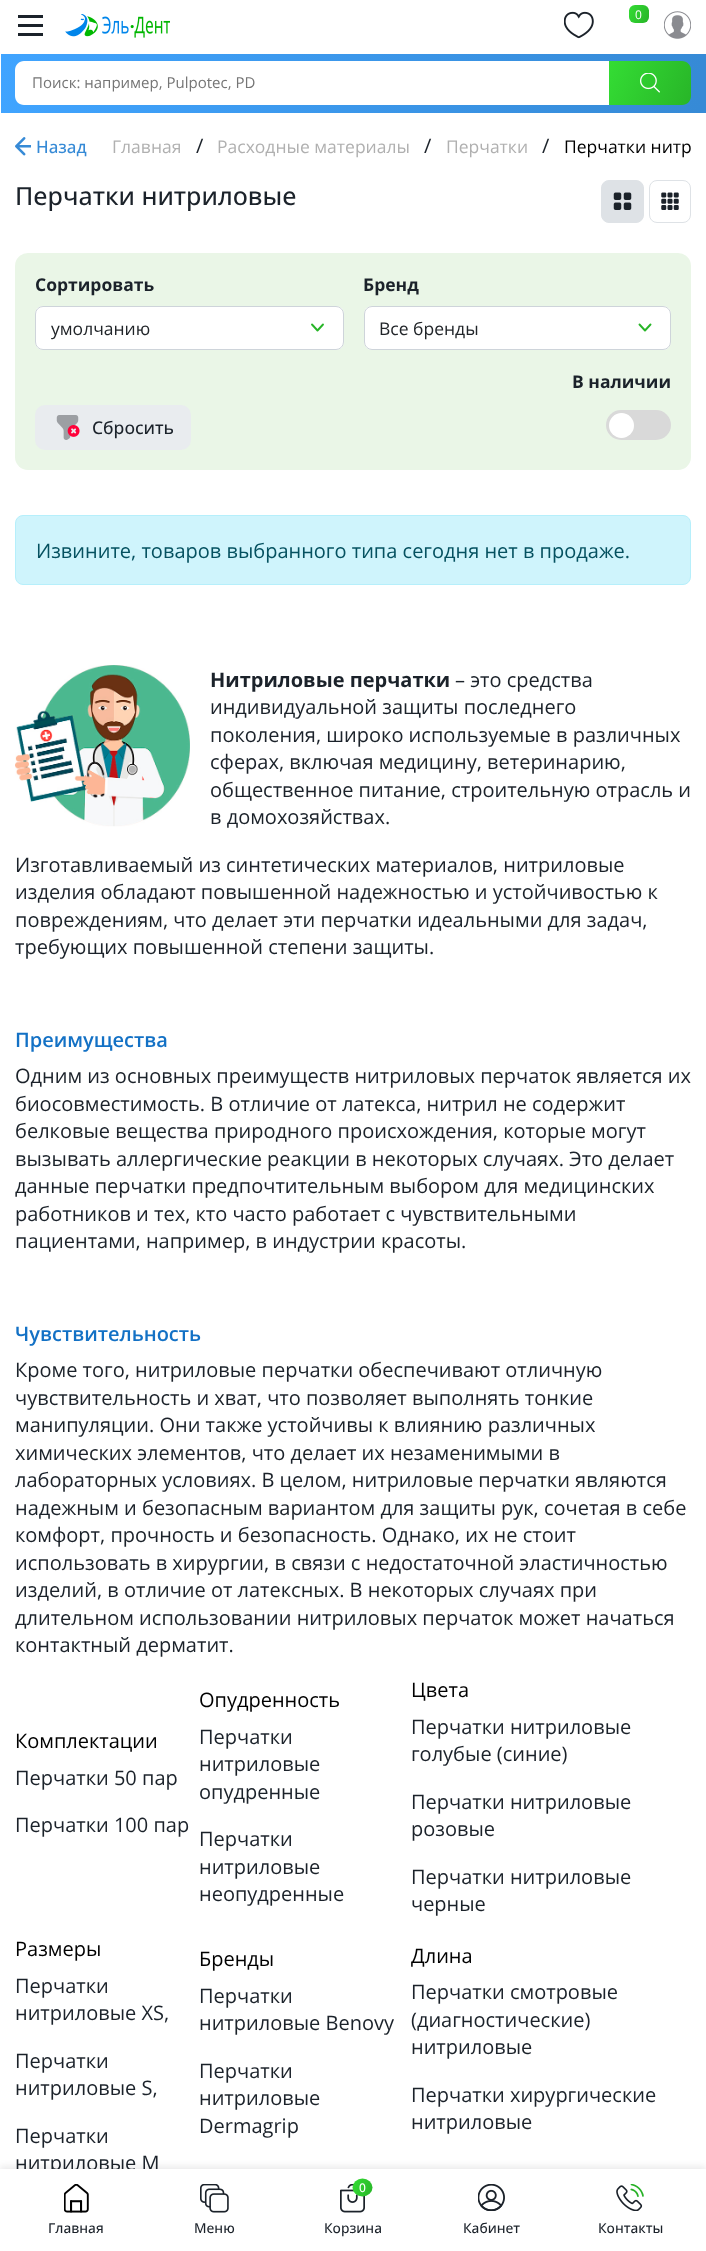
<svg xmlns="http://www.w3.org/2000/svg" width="706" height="2251">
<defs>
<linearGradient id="g1" gradientUnits="userSpaceOnUse" x1="650" y1="19" x2="627" y2="9"><stop offset="0" stop-color="#28b528"/><stop offset="1" stop-color="#34dd34"/></linearGradient>
<linearGradient id="g2" gradientUnits="userSpaceOnUse" x1="0.3" y1="58" x2="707" y2="108"><stop offset="0" stop-color="#40a4ff"/><stop offset="0.99" stop-color="#368ad6"/></linearGradient>
<linearGradient id="g3" gradientUnits="userSpaceOnUse" x1="693" y1="101" x2="607" y2="65"><stop offset="0" stop-color="#28b528"/><stop offset="1" stop-color="#34dd34"/></linearGradient>
<linearGradient id="g4" gradientUnits="userSpaceOnUse" x1="374" y1="2192" x2="351" y2="2183"><stop offset="0" stop-color="#28b528"/><stop offset="1" stop-color="#34dd34"/></linearGradient>
</defs>
<rect width="100%" height="100%" fill="#fff"/>
<rect x="18" y="15" width="25" height="3" fill="#1b222a"/>
<rect x="18" y="24" width="25" height="3" fill="#1b222a"/>
<rect x="18" y="33" width="25" height="3" fill="#1b222a"/>
<image x="65" y="14" width="105" height="24" href="media/1.png"/>
<image x="564" y="11" width="30" height="28" href="media/2.png"/>
<rect x="629" y="5" width="20" height="18" rx="6" fill="url(#g1)"/>
<text x="635" y="19" style="font-family:Open Sans;font-size:12px;fill:#fff">0</text>
<image x="664" y="11" width="27" height="28" href="media/3.png"/>
<rect x="1" y="54" width="705" height="59" fill="url(#g2)"/>
<path d="M24 61h585v44h-585c-5 0-9-4-9-9v-26c0-5 4-9 9-9z" fill="#fff"/>
<text x="32" y="88" style="font-family:Open Sans;font-size:15px;fill:#757575">Поиск: например, Pulpotec, PD</text>
<path d="M609 61h73c5 0 9 4 9 9v26c0 5-4 9-9 9h-73z" fill="url(#g3)"/>
<image x="640" y="73" width="20" height="20" href="media/4.png"/>
<image x="15" y="137" width="16" height="19" href="media/5.png"/>
<text x="36" y="153" style="font-family:Open Sans;font-size:17px;font-weight:500;fill:#368ad6">Назад</text>
<text x="112" y="153" style="font-family:Open Sans;font-size:17.5px;fill:#b0b0b0">Главная</text>
<text x="196" y="153" style="font-family:Open Sans;font-size:20px;fill:#1b222a">/</text>
<text x="217" y="153" style="font-family:Open Sans;font-size:17.5px;fill:#b0b0b0">Расходные материалы</text>
<text x="424" y="153" style="font-family:Open Sans;font-size:20px;fill:#1b222a">/</text>
<text x="446" y="153" style="font-family:Open Sans;font-size:17.5px;fill:#b0b0b0">Перчатки</text>
<text x="542" y="153" style="font-family:Open Sans;font-size:20px;fill:#1b222a">/</text>
<text x="564" y="153" style="font-family:Open Sans;font-size:17.5px;fill:#000">Перчатки нитр</text>
<text x="15" y="205" style="font-family:Open Sans;font-size:25px;font-weight:500;fill:#1b222a">Перчатки нитриловые</text>
<rect x="601.5" y="180.5" width="42" height="42" rx="7.5" fill="#dee2e6" stroke="#dee2e6"/>
<image x="613" y="192" width="19" height="18" href="media/6.png"/>
<rect x="649.5" y="180.5" width="41" height="42" rx="7.5" fill="none" stroke="#dee2e6"/>
<image x="661" y="192" width="18" height="18" href="media/7.png"/>
<rect x="15" y="253" width="676" height="217" rx="13" fill="#eaf6e7"/>
<text x="35" y="291" style="font-family:Open Sans;font-size:17.5px;font-weight:bold;fill:#1b222a">Сортировать</text>
<rect x="35" y="306" width="309" height="44" rx="8" fill="#fff"/>
<path d="M312 324.5l5.5 6l5.5-6" fill="none" stroke="#28b528" stroke-width="1.9" stroke-linecap="round" stroke-linejoin="round"/>
<rect x="35.5" y="306.5" width="308" height="43" rx="7.5" fill="none" stroke="#ced4da"/>
<text x="51" y="335" style="font-family:Open Sans;font-size:17.5px;fill:#212529">умолчанию</text>
<text x="363" y="291" style="font-family:Open Sans;font-size:17.5px;font-weight:bold;fill:#1b222a">Бренд</text>
<rect x="364" y="306" width="307" height="44" rx="8" fill="#fff"/>
<path d="M639.5 324.5l5.5 6l5.5-6" fill="none" stroke="#28b528" stroke-width="1.9" stroke-linecap="round" stroke-linejoin="round"/>
<rect x="364.5" y="306.5" width="306" height="43" rx="7.5" fill="none" stroke="#ced4da"/>
<text x="379" y="335" style="font-family:Open Sans;font-size:17.5px;fill:#212529">Все бренды</text>
<text x="572" y="388" style="font-family:Open Sans;font-size:17.5px;font-weight:bold;fill:#1b222a">В наличии</text>
<rect x="606" y="410" width="65" height="30" rx="15" fill="#d9d9d9"/>
<circle cx="621.5" cy="425.5" r="12.5" fill="#fff"/>
<rect x="35" y="405" width="156" height="45" rx="10" fill="#e9ecef"/>
<image x="56" y="415" width="24" height="25" href="media/8.png"/>
<text x="92" y="434" style="font-family:Open Sans;font-size:17.5px;font-weight:500;fill:#1b222a">Сбросить</text>
<rect x="15.5" y="515.5" width="675" height="69" rx="7.5" fill="#cff4fc" stroke="#b6effb"/>
<text x="36" y="558" style="font-family:Open Sans;font-size:20px;fill:#055160">Извините, товаров выбранного типа сегодня нет в продаже.</text>
<image x="15" y="665" width="175" height="162" href="media/9.png"/>
<text x="210" y="687" style="font-family:Open Sans;font-size:20px;font-weight:bold;fill:#1b222a">Нитриловые перчатки</text>
<text x="455" y="687" style="font-family:Open Sans;font-size:20px;fill:#1b222a">– это средства</text>
<text x="210" y="714" style="font-family:Open Sans;font-size:20px;fill:#1b222a">индивидуальной защиты последнего</text>
<text x="210" y="742" style="font-family:Open Sans;font-size:20px;fill:#1b222a">поколения, широко используемые в различных</text>
<text x="210" y="769" style="font-family:Open Sans;font-size:20px;fill:#1b222a">сферах, включая медицину, ветеринарию,</text>
<text x="210" y="797" style="font-family:Open Sans;font-size:20px;fill:#1b222a">общественное питание, строительную отрасль и</text>
<text x="210" y="824" style="font-family:Open Sans;font-size:20px;fill:#1b222a">в домохозяйствах.</text>
<text x="15" y="872" style="font-family:Open Sans;font-size:20px;fill:#1b222a">Изготавливаемый из синтетических материалов, нитриловые</text>
<text x="15" y="899" style="font-family:Open Sans;font-size:20px;fill:#1b222a">изделия обладают повышенной надежностью и устойчивостью к</text>
<text x="15" y="927" style="font-family:Open Sans;font-size:20px;fill:#1b222a">повреждениям, что делает эти перчатки идеальными для задач,</text>
<text x="15" y="954" style="font-family:Open Sans;font-size:20px;fill:#1b222a">требующих повышенной степени защиты.</text>
<text x="15" y="1047" style="font-family:Open Sans;font-size:20px;font-weight:600;fill:#1371c5">Преимущества</text>
<text x="15" y="1083" style="font-family:Open Sans;font-size:20px;fill:#1b222a">Одним из основных преимуществ нитриловых перчаток является их</text>
<text x="15" y="1111" style="font-family:Open Sans;font-size:20px;fill:#1b222a">биосовместимость. В отличие от латекса, нитрил не содержит</text>
<text x="15" y="1138" style="font-family:Open Sans;font-size:20px;fill:#1b222a">белковые вещества природного происхождения, которые могут</text>
<text x="15" y="1166" style="font-family:Open Sans;font-size:20px;fill:#1b222a">вызывать аллергические реакции в некоторых случаях. Это делает</text>
<text x="15" y="1193" style="font-family:Open Sans;font-size:20px;fill:#1b222a">данные перчатки предпочтительным выбором для медицинских</text>
<text x="15" y="1221" style="font-family:Open Sans;font-size:20px;fill:#1b222a">работников и тех, кто часто работает с чувствительными</text>
<text x="15" y="1248" style="font-family:Open Sans;font-size:20px;fill:#1b222a">пациентами, например, в индустрии красоты.</text>
<text x="15" y="1341" style="font-family:Open Sans;font-size:20px;font-weight:600;fill:#1371c5">Чувствительность</text>
<text x="15" y="1377" style="font-family:Open Sans;font-size:20px;fill:#1b222a">Кроме того, нитриловые перчатки обеспечивают отличную</text>
<text x="15" y="1405" style="font-family:Open Sans;font-size:20px;fill:#1b222a">чувствительность и хват, что позволяет выполнять тонкие</text>
<text x="15" y="1432" style="font-family:Open Sans;font-size:20px;fill:#1b222a">манипуляции. Они также устойчивы к влиянию различных</text>
<text x="15" y="1460" style="font-family:Open Sans;font-size:20px;fill:#1b222a">химических элементов, что делает их незаменимыми в</text>
<text x="15" y="1487" style="font-family:Open Sans;font-size:20px;fill:#1b222a">лабораторных условиях. В целом, нитриловые перчатки являются</text>
<text x="15" y="1515" style="font-family:Open Sans;font-size:20px;fill:#1b222a">надежным и безопасным вариантом для защиты рук, сочетая в себе</text>
<text x="15" y="1542" style="font-family:Open Sans;font-size:20px;fill:#1b222a">комфорт, прочность и безопасность. Однако, их не стоит</text>
<text x="15" y="1570" style="font-family:Open Sans;font-size:20px;fill:#1b222a">использовать в хирургии, в связи с недостаточной эластичностью</text>
<text x="15" y="1597" style="font-family:Open Sans;font-size:20px;fill:#1b222a">изделий, в отличие от латексных. В некоторых случаях при</text>
<text x="15" y="1625" style="font-family:Open Sans;font-size:20px;fill:#1b222a">длительном использовании нитриловых перчаток может начаться</text>
<text x="15" y="1652" style="font-family:Open Sans;font-size:20px;fill:#1b222a">контактный дерматит.</text>
<text x="15" y="1748" style="font-family:Open Sans;font-size:20px;fill:#000">Комплектации</text>
<text x="15" y="1785" style="font-family:Open Sans;font-size:20px;fill:#1b222a">Перчатки 50 пар</text>
<text x="15" y="1832" style="font-family:Open Sans;font-size:20px;fill:#1b222a">Перчатки 100 пар</text>
<text x="199" y="1707" style="font-family:Open Sans;font-size:20px;fill:#000">Опудренность</text>
<text x="199" y="1744" style="font-family:Open Sans;font-size:20px;fill:#1b222a">Перчатки</text>
<text x="199" y="1771" style="font-family:Open Sans;font-size:20px;fill:#1b222a">нитриловые</text>
<text x="199" y="1799" style="font-family:Open Sans;font-size:20px;fill:#1b222a">опудренные</text>
<text x="199" y="1846" style="font-family:Open Sans;font-size:20px;fill:#1b222a">Перчатки</text>
<text x="199" y="1874" style="font-family:Open Sans;font-size:20px;fill:#1b222a">нитриловые</text>
<text x="199" y="1901" style="font-family:Open Sans;font-size:20px;fill:#1b222a">неопудренные</text>
<text x="411" y="1697" style="font-family:Open Sans;font-size:20px;fill:#000">Цвета</text>
<text x="411" y="1734" style="font-family:Open Sans;font-size:20px;fill:#1b222a">Перчатки нитриловые</text>
<text x="411" y="1761" style="font-family:Open Sans;font-size:20px;fill:#1b222a">голубые (синие)</text>
<text x="411" y="1809" style="font-family:Open Sans;font-size:20px;fill:#1b222a">Перчатки нитриловые</text>
<text x="411" y="1836" style="font-family:Open Sans;font-size:20px;fill:#1b222a">розовые</text>
<text x="411" y="1884" style="font-family:Open Sans;font-size:20px;fill:#1b222a">Перчатки нитриловые</text>
<text x="411" y="1911" style="font-family:Open Sans;font-size:20px;fill:#1b222a">черные</text>
<text x="15" y="1956" style="font-family:Open Sans;font-size:20px;fill:#000">Размеры</text>
<text x="15" y="1993" style="font-family:Open Sans;font-size:20px;fill:#1b222a">Перчатки</text>
<text x="15" y="2020" style="font-family:Open Sans;font-size:20px;fill:#1b222a">нитриловые XS,</text>
<text x="15" y="2068" style="font-family:Open Sans;font-size:20px;fill:#1b222a">Перчатки</text>
<text x="15" y="2095" style="font-family:Open Sans;font-size:20px;fill:#1b222a">нитриловые S,</text>
<text x="15" y="2143" style="font-family:Open Sans;font-size:20px;fill:#1b222a">Перчатки</text>
<text x="15" y="2170" style="font-family:Open Sans;font-size:20px;fill:#1b222a">нитриловые M</text>
<text x="199" y="1966" style="font-family:Open Sans;font-size:20px;fill:#000">Бренды</text>
<text x="199" y="2003" style="font-family:Open Sans;font-size:20px;fill:#1b222a">Перчатки</text>
<text x="199" y="2030" style="font-family:Open Sans;font-size:20px;fill:#1b222a">нитриловые Benovy</text>
<text x="199" y="2078" style="font-family:Open Sans;font-size:20px;fill:#1b222a">Перчатки</text>
<text x="199" y="2105" style="font-family:Open Sans;font-size:20px;fill:#1b222a">нитриловые</text>
<text x="199" y="2133" style="font-family:Open Sans;font-size:20px;fill:#1b222a">Dermagrip</text>
<text x="411" y="1963" style="font-family:Open Sans;font-size:20px;fill:#000">Длина</text>
<text x="411" y="1999" style="font-family:Open Sans;font-size:20px;fill:#1b222a">Перчатки смотровые</text>
<text x="411" y="2027" style="font-family:Open Sans;font-size:20px;fill:#1b222a">(диагностические)</text>
<text x="411" y="2054" style="font-family:Open Sans;font-size:20px;fill:#1b222a">нитриловые</text>
<text x="411" y="2102" style="font-family:Open Sans;font-size:20px;fill:#1b222a">Перчатки хирургические</text>
<text x="411" y="2129" style="font-family:Open Sans;font-size:20px;fill:#1b222a">нитриловые</text>
<rect y="2166" width="706" height="83" fill="#00000014" filter="blur(3px)"/>
<rect y="2169" width="706" height="82" fill="#fff"/>
<image x="64" y="2184" width="25" height="29" href="media/10.png"/>
<text x="48" y="2233" style="font-family:Open Sans;font-size:13.75px;font-weight:500;fill:#1b222a">Главная</text>
<image x="200" y="2184" width="29" height="29" href="media/11.png"/>
<text x="194" y="2233" style="font-family:Open Sans;font-size:13.75px;font-weight:500;fill:#1b222a">Меню</text>
<image x="340" y="2184" width="25" height="29" href="media/12.png"/>
<ellipse cx="362.5" cy="2187.5" rx="10" ry="9" fill="url(#g4)"/>
<text x="359" y="2192" style="font-family:Open Sans;font-size:12px;font-weight:500;fill:#fff">0</text>
<text x="324" y="2233" style="font-family:Open Sans;font-size:13.75px;font-weight:500;fill:#1b222a">Корзина</text>
<image x="478" y="2184" width="27" height="27" href="media/13.png"/>
<text x="463" y="2233" style="font-family:Open Sans;font-size:13.75px;font-weight:500;fill:#1b222a">Кабинет</text>
<image x="616" y="2184" width="28" height="27" href="media/14.png"/>
<text x="598" y="2233" style="font-family:Open Sans;font-size:13.75px;font-weight:500;fill:#1b222a">Контакты</text>
</svg>
